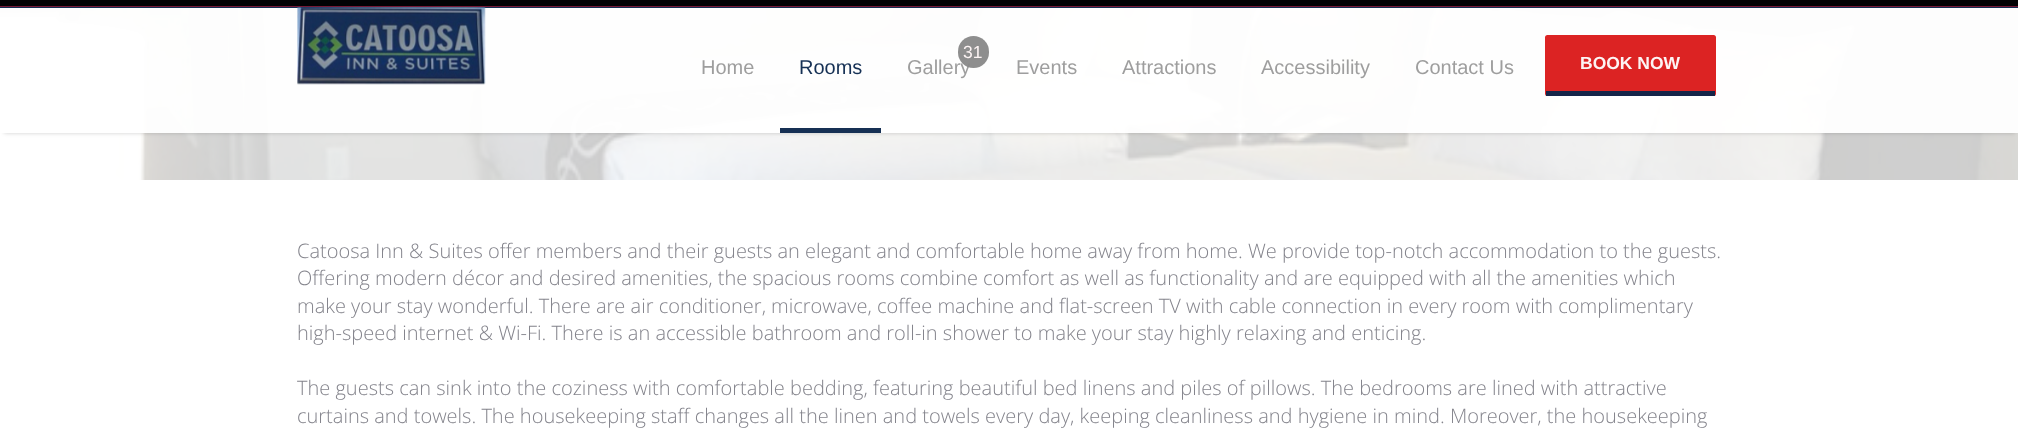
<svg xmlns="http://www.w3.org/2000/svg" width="2018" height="433">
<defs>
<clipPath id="clip1"><path d="M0 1h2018v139h-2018zm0-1h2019v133h-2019z" clip-rule="evenodd"/></clipPath>
</defs>
<rect width="100%" height="100%" fill="#fff"/>
<image x="0" y="7" width="2018" height="173" href="media/1.png"/>
<g clip-path="url(#clip1)">
<rect x="4" y="8" width="2011" height="125" fill="#00000030" filter="blur(2px)"/>
</g>
<rect y="7" width="2018" height="1" fill="#0a264cf2"/>
<rect width="2018" height="6" fill="#010204"/>
<rect y="6" width="2018" height="1" fill="#761937"/>
<rect y="8" width="2018" height="125" fill="#fffffff2"/>
<image x="297" y="7" width="189" height="78" href="media/2.png"/>
<text x="701" y="74" style="font-family:Liberation Sans;font-size:20px;fill:#9e9e9e">Home</text>
<rect x="780" y="128" width="101" height="5" fill="#163054"/>
<text x="799" y="74" style="font-family:Liberation Sans;font-size:20px;fill:#163155">Rooms</text>
<text x="907" y="74" style="font-family:Liberation Sans;font-size:20px;fill:#9e9e9e">Gallery</text>
<rect x="958" y="36" width="31" height="32" rx="15.5" fill="#888888f2"/>
<text x="963" y="58" style="font-family:Liberation Sans;font-size:17.5px;fill:#fdf4f4">31</text>
<text x="1016" y="74" style="font-family:Liberation Sans;font-size:20px;fill:#9e9e9e">Events</text>
<text x="1122" y="74" style="font-family:Liberation Sans;font-size:20px;fill:#9e9e9e">Attractions</text>
<text x="1261" y="74" style="font-family:Liberation Sans;font-size:20px;fill:#9e9e9e">Accessibility</text>
<text x="1415" y="74" style="font-family:Liberation Sans;font-size:20px;fill:#9e9e9e">Contact Us</text>
<rect x="1545" y="35" width="171" height="61" rx="2.5" fill="#dc2323"/>
<rect x="1546" y="91" width="169" height="5" fill="#0a264cf2"/>
<text x="1580" y="69" style="font-family:Liberation Sans;font-size:17.5px;font-weight:bold;fill:#fdf4f4">BOOK NOW</text>
<text x="297" y="258" style="font-family:Open Sans;font-size:20px;font-weight:300;fill:#84848c">Catoosa Inn &amp; Suites offer members and their guests an elegant and comfortable home away from home. We provide top-notch accommodation to the guests.</text>
<text x="297" y="285" style="font-family:Open Sans;font-size:20px;font-weight:300;fill:#84848c">Offering modern décor and desired amenities, the spacious rooms combine comfort as well as functionality and are equipped with all the amenities which</text>
<text x="297" y="313" style="font-family:Open Sans;font-size:20px;font-weight:300;fill:#84848c">make your stay wonderful. There are air conditioner, microwave, coffee machine and flat-screen TV with cable connection in every room with complimentary</text>
<text x="297" y="340" style="font-family:Open Sans;font-size:20px;font-weight:300;fill:#84848c">high-speed internet &amp; Wi-Fi. There is an accessible bathroom and roll-in shower to make your stay highly relaxing and enticing.</text>
<text x="297" y="395" style="font-family:Open Sans;font-size:20px;font-weight:300;fill:#84848c">The guests can sink into the coziness with comfortable bedding, featuring beautiful bed linens and piles of pillows. The bedrooms are lined with attractive</text>
<text x="297" y="423" style="font-family:Open Sans;font-size:20px;font-weight:300;fill:#84848c">curtains and towels. The housekeeping staff changes all the linen and towels every day, keeping cleanliness and hygiene in mind. Moreover, the housekeeping</text>
</svg>
